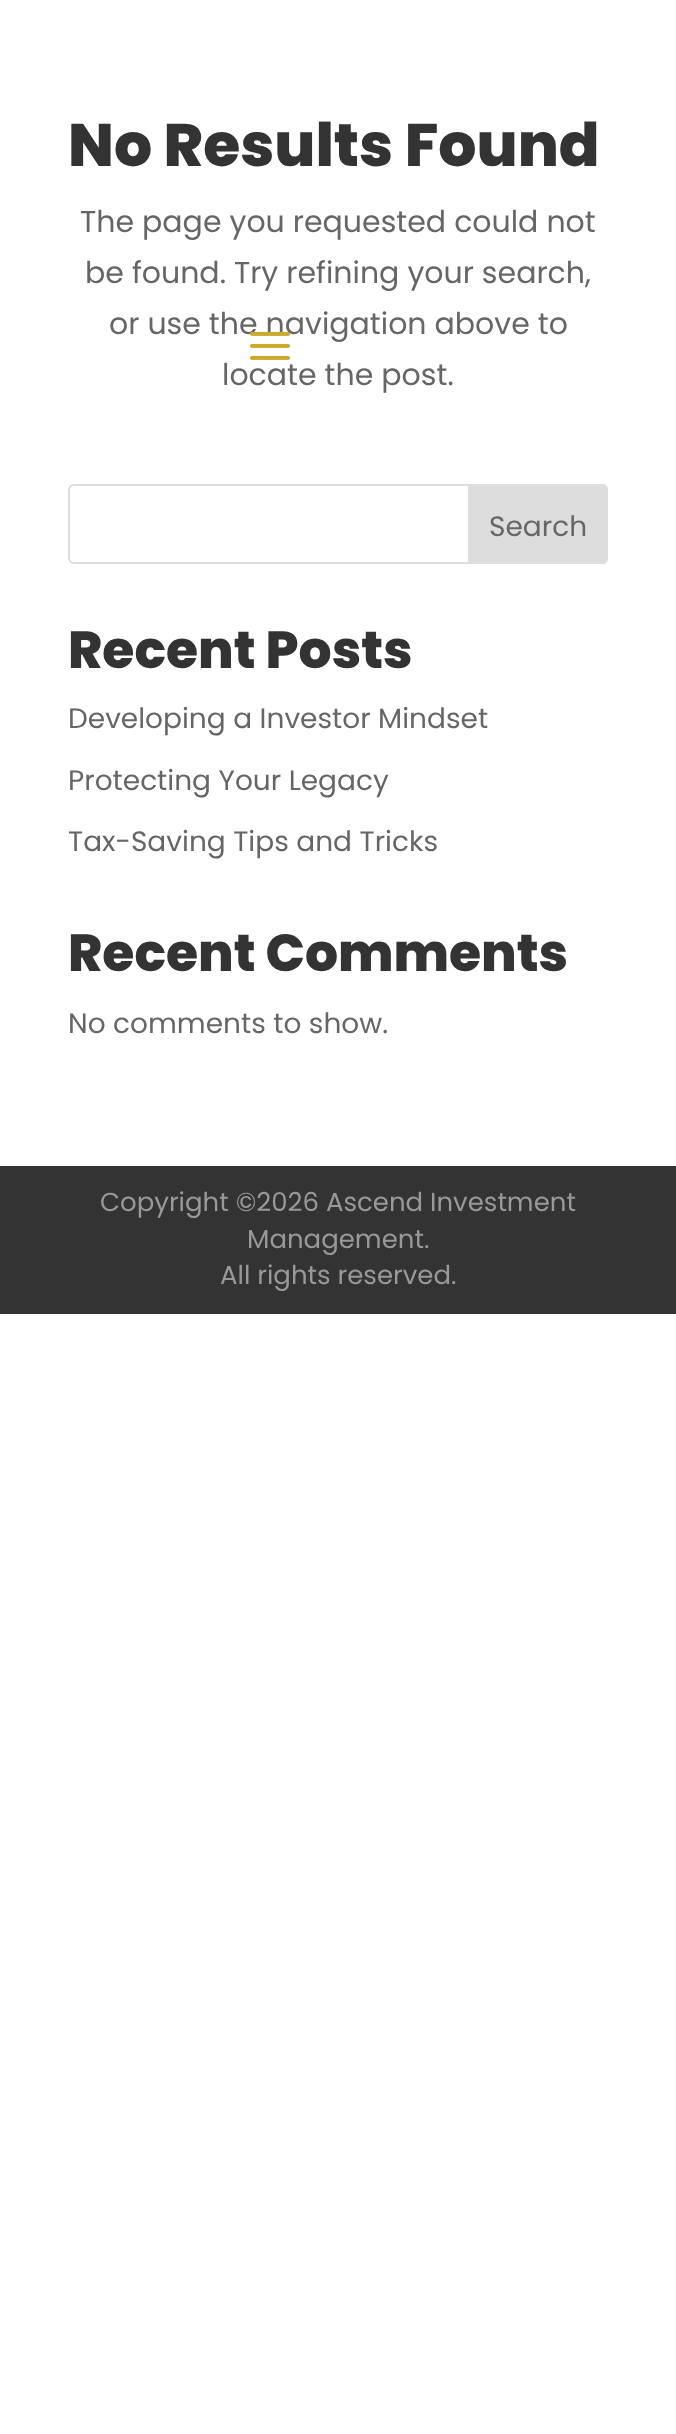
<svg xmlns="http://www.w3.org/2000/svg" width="676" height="2434">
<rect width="100%" height="100%" fill="#fff"/>
<text x="68" y="166" style="font-family:Poppins;font-size:60px;font-weight:800;fill:#333">No Results Found</text>
<text x="80" y="232" style="font-family:Poppins;font-size:30px;fill:#666">The page you requested could not</text>
<text x="85" y="283" style="font-family:Poppins;font-size:30px;fill:#666">be found. Try refining your search,</text>
<text x="109" y="334" style="font-family:Poppins;font-size:30px;fill:#666">or use the navigation above to</text>
<text x="222" y="385" style="font-family:Poppins;font-size:30px;fill:#666">locate the post.</text>
<rect x="69" y="485" width="538" height="78" rx="5" fill="none" stroke="#ddd" stroke-width="2"/>
<path d="M469 485h133c3 0 5 2 5 5v68c0 3-2 5-5 5h-133z" fill="#ddd" stroke="#ddd" stroke-width="2"/>
<text x="489" y="536" style="font-family:Poppins;font-size:28px;fill:#666">Search</text>
<text x="68" y="668" style="font-family:Poppins;font-size:52px;font-weight:800;fill:#333">Recent Posts</text>
<text x="68" y="728" style="font-family:Poppins;font-size:28px;fill:#666">Developing a Investor Mindset</text>
<text x="68" y="790" style="font-family:Poppins;font-size:28px;fill:#666">Protecting Your Legacy</text>
<text x="68" y="851" style="font-family:Poppins;font-size:28px;fill:#666">Tax-Saving Tips and Tricks</text>
<text x="68" y="971" style="font-family:Poppins;font-size:52px;font-weight:800;fill:#333">Recent Comments</text>
<text x="68" y="1033" style="font-family:Poppins;font-size:28px;fill:#666">No comments to show.</text>
<rect y="1166" width="676" height="148" fill="#333"/>
<text x="100" y="1211" style="font-family:Poppins;font-size:26px;fill:#999">Copyright ©2026 Ascend Investment</text>
<text x="247" y="1248" style="font-family:Poppins;font-size:26px;fill:#999">Management.</text>
<text x="220" y="1284" style="font-family:Poppins;font-size:26px;fill:#999">All rights reserved.</text>
<image x="250" y="331" width="40" height="29" href="media/1.png"/>
</svg>
